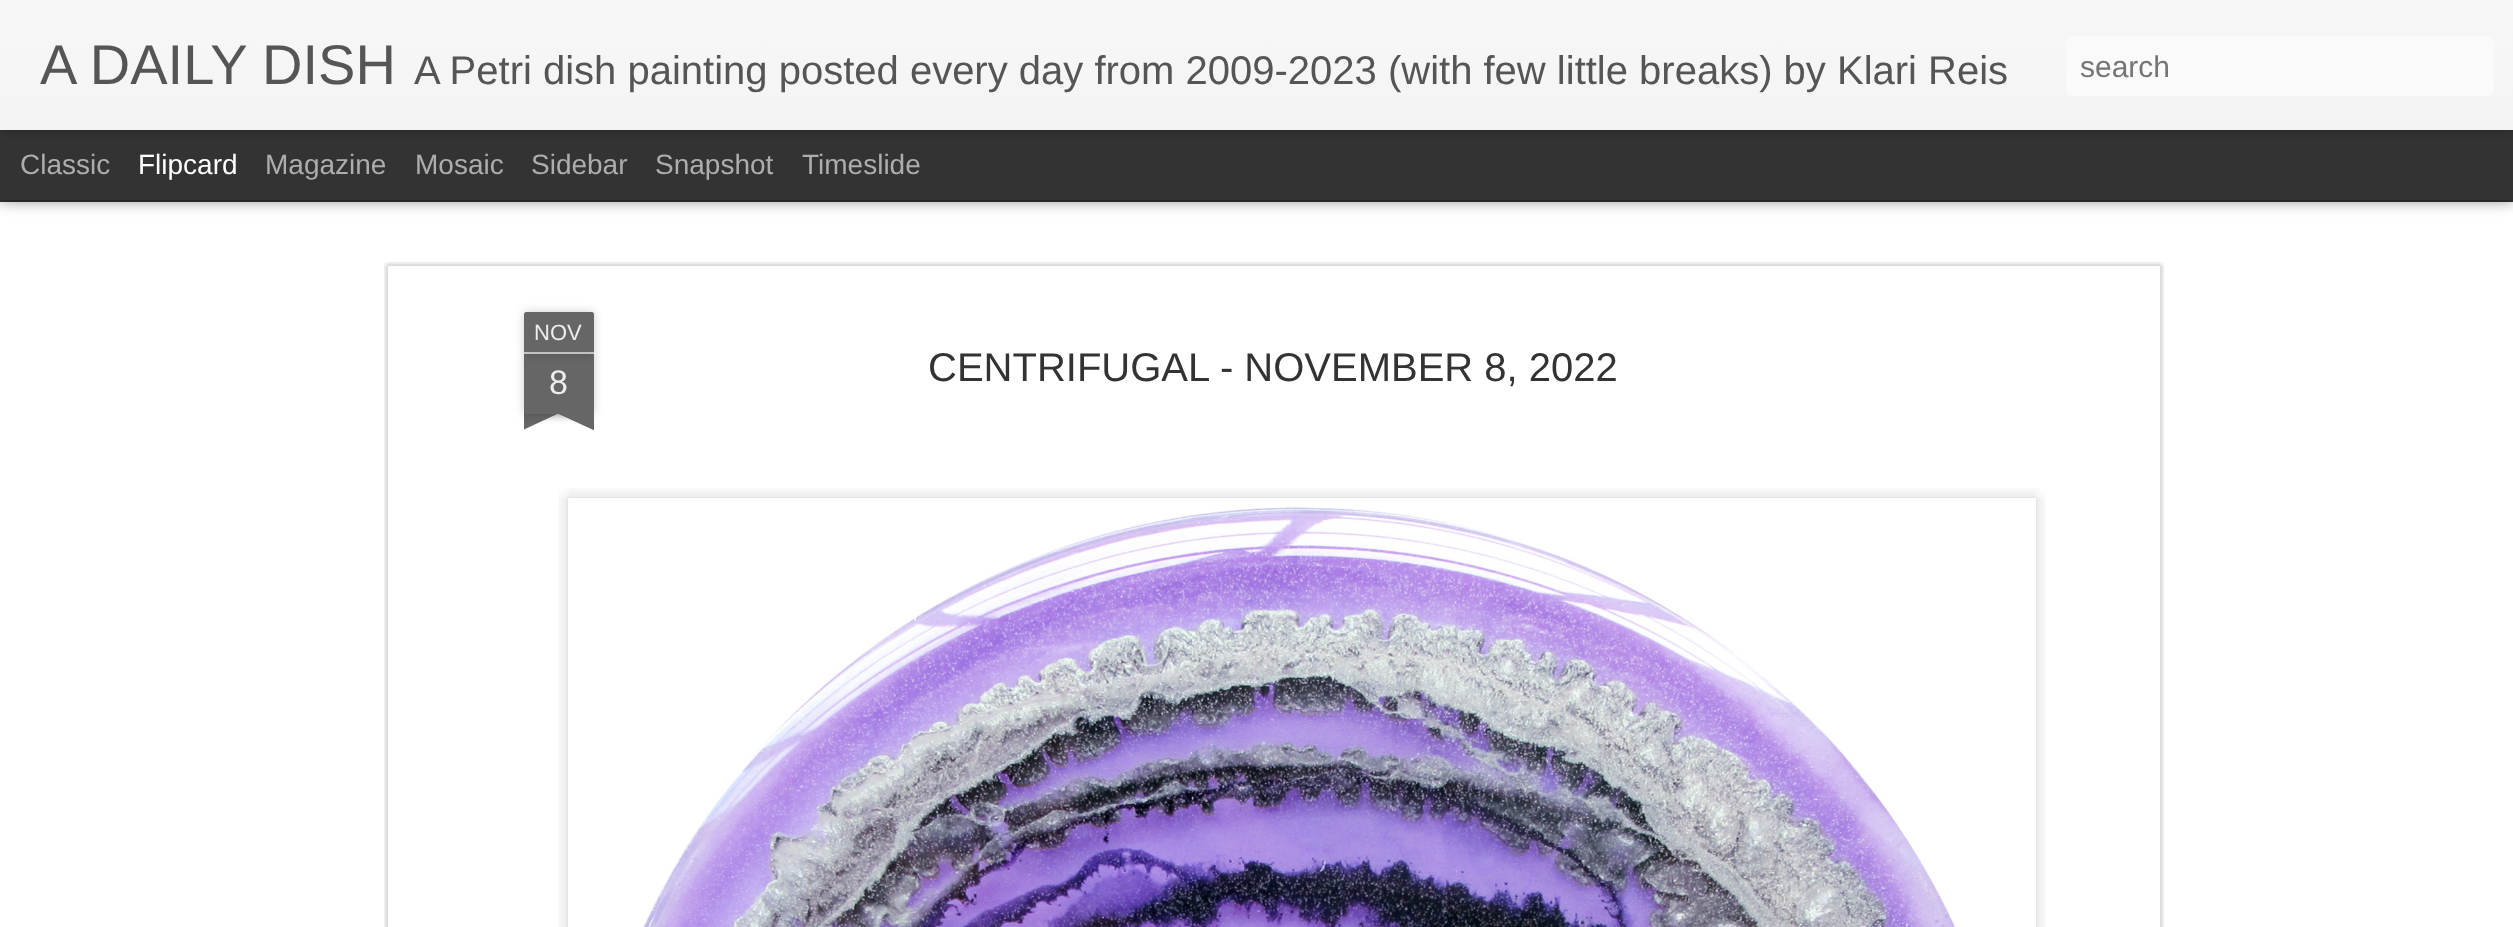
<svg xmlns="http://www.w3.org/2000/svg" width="2513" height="927">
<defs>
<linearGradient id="g1" gradientUnits="userSpaceOnUse" x1="0" y1="0" x2="0" y2="130"><stop offset="0" stop-color="#f7f7f7"/><stop offset="1" stop-color="#f4f4f4"/></linearGradient>
<clipPath id="clip1"><rect x="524" y="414" width="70" height="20"/></clipPath>
<clipPath id="clip2"><rect x="524" y="414" width="70" height="20"/></clipPath>
</defs>
<rect width="100%" height="100%" fill="#333"/>
<rect y="202" width="2513" height="725" fill="#fff"/>
<rect y="130" width="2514" height="70" fill="#00000080" filter="blur(8px)"/>
<rect y="130" width="2513" height="70" fill="#333"/>
<rect width="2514" height="130" fill="#0000004d" filter="blur(5px)"/>
<rect width="2513" height="130" fill="url(#g1)"/>
<text x="40" y="84" style="font-family:Liberation Sans;font-size:56px;fill:#555">A DAILY DISH</text>
<text x="414" y="84" style="font-family:Liberation Sans;font-size:40px;fill:#555">A Petri dish painting posted every day from 2009-2023 (with few little breaks) by Klari Reis</text>
<rect x="2066" y="36" width="428" height="60" rx="6" fill="#fafafa"/>
<text x="2080" y="77" style="font-family:Liberation Sans;font-size:30px;fill:#757575">search</text>
<text x="20" y="174" style="font-family:Liberation Sans;font-size:28px;fill:#adadad">Classic</text>
<text x="138" y="174" style="font-family:Liberation Sans;font-size:28px;fill:#fff">Flipcard</text>
<text x="265" y="174" style="font-family:Liberation Sans;font-size:28px;fill:#adadad">Magazine</text>
<text x="415" y="174" style="font-family:Liberation Sans;font-size:28px;fill:#adadad">Mosaic</text>
<text x="531" y="174" style="font-family:Liberation Sans;font-size:28px;fill:#adadad">Sidebar</text>
<text x="655" y="174" style="font-family:Liberation Sans;font-size:28px;fill:#adadad">Snapshot</text>
<text x="802" y="174" style="font-family:Liberation Sans;font-size:28px;fill:#adadad">Timeslide</text>
<image x="384" y="262" width="1780" height="665" href="media/1.png"/>
<rect x="524" y="354" width="70" height="60" fill="#00000033" filter="blur(5px)"/>
<rect x="524" y="354" width="70" height="60" fill="#666"/>
<rect x="524" y="312" width="70" height="42" rx="2" fill="#00000033" filter="blur(5px)"/>
<path d="M526 312h66c1 0 2 1 2 2v40h-70v-40c0-1 1-2 2-2z" fill="#666"/>
<rect x="524" y="352" width="70" height="2" fill="#c2c2c2"/>
<text x="534" y="340" style="font-family:Liberation Sans;font-size:22px;fill:#eee">NOV</text>
<text x="549" y="394" style="font-family:Liberation Sans;font-size:34px;fill:#eee">8</text>
<g clip-path="url(#clip1)">
<rect x="506" y="394" width="100" height="20" fill="#00000033" filter="blur(5px)"/>
</g>
<g clip-path="url(#clip2)">
<path d="M505 416l91-42l9 18l-91 42z" fill="#666"/>
</g>
<g clip-path="url(#clip1)">
<rect x="512" y="394" width="100" height="20" fill="#00000033" filter="blur(5px)"/>
</g>
<g clip-path="url(#clip2)">
<path d="M520 374l91 42l-9 18l-91-42z" fill="#666"/>
</g>
<text x="928" y="381" style="font-family:Liberation Sans;font-size:40px;fill:#333">CENTRIFUGAL - NOVEMBER 8, 2022</text>
<image x="558" y="488" width="1488" height="439" href="media/2.png"/>
<image x="646" y="508" width="1309" height="419" href="media/3.png"/>
</svg>
